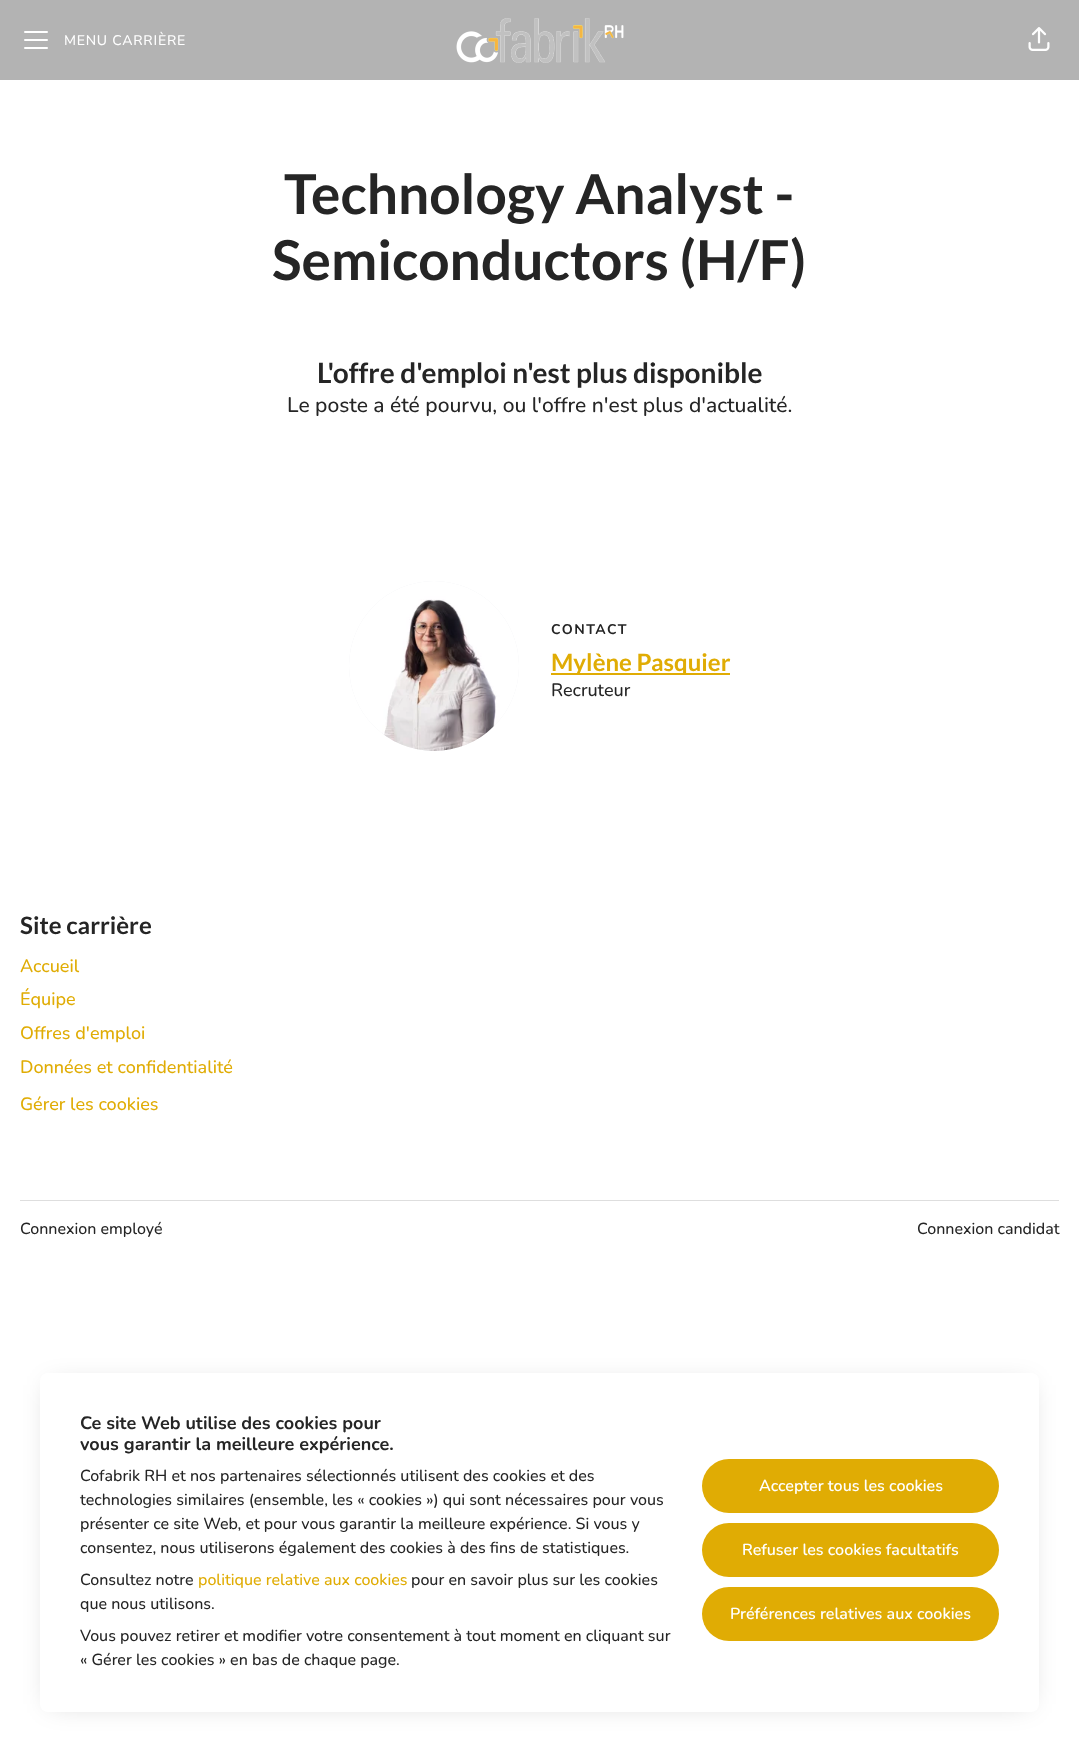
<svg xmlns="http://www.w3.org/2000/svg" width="1079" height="1752">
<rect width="100%" height="100%" fill="#fff"/>
<rect width="1079" height="80" fill="#b3b3b3"/>
<rect x="24" y="31" width="24" height="2" rx="1" fill="#fff"/>
<rect x="24" y="39" width="24" height="2" rx="1" fill="#fff"/>
<rect x="24" y="47" width="24" height="2" rx="1" fill="#fff"/>
<text x="64" y="45" style="font-family:Nunito;font-size:14px;font-weight:200;letter-spacing:0.75px;fill:#fff">MENU CARRIÈRE</text>
<image x="456" y="18" width="168" height="45" href="media/1.png"/>
<image x="1028" y="27" width="22" height="24" href="media/2.png"/>
<text x="284" y="214" style="font-family:Lato;font-size:55px;font-weight:bold;fill:#252525">Technology Analyst -</text>
<text x="272" y="280" style="font-family:Lato;font-size:55px;font-weight:bold;fill:#252525">Semiconductors (H/F)</text>
<text x="317" y="383" style="font-family:Lato;font-size:28px;font-weight:bold;fill:#252525">L'offre d'emploi n'est plus disponible</text>
<text x="287" y="412" style="font-family:Nunito;font-size:21px;font-weight:200;fill:#252525">Le poste a été pourvu, ou l'offre n'est plus d'actualité.</text>
<circle cx="434" cy="666" r="85" fill="#eeeff2"/>
<image x="349" y="581" width="170" height="170" href="media/3.png"/>
<text x="551" y="634" style="font-family:'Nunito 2';font-size:14px;font-weight:200;letter-spacing:1.5px;fill:#252525">CONTACT</text>
<rect x="551" y="673" width="179" height="2" fill="#e0ac04"/>
<text x="551" y="671" style="font-family:Lato;font-size:24px;font-weight:bold;fill:#e0ac04">Mylène Pasquier</text>
<text x="551" y="696" style="font-family:Nunito;font-size:18px;font-weight:200;fill:#252525">Recruteur</text>
<text x="20" y="934" style="font-family:Lato;font-size:24px;font-weight:bold;fill:#252525">Site carrière</text>
<text x="20" y="972" style="font-family:Nunito;font-size:18px;font-weight:200;fill:#e0ac04">Accueil</text>
<text x="20" y="1005" style="font-family:Nunito;font-size:18px;font-weight:200;fill:#e0ac04">Équipe</text>
<text x="20" y="1039" style="font-family:Nunito;font-size:18px;font-weight:200;fill:#e0ac04">Offres d'emploi</text>
<text x="20" y="1073" style="font-family:Nunito;font-size:18px;font-weight:200;fill:#e0ac04">Données et confidentialité</text>
<text x="20" y="1110" style="font-family:Nunito;font-size:18px;font-weight:200;fill:#e0ac04">Gérer les cookies</text>
<rect x="20" y="1200" width="1039" height="1" fill="#dedede"/>
<text x="20" y="1234" style="font-family:Nunito;font-size:16px;font-weight:200;fill:#252525">Connexion employé</text>
<text x="917" y="1234" style="font-family:Nunito;font-size:16px;font-weight:200;fill:#252525">Connexion candidat</text>
<rect x="50" y="1385" width="979" height="319" fill="#0000002e" filter="blur(13.5px)"/>
<rect x="40" y="1373" width="999" height="339" rx="8" fill="#fff"/>
<text x="80" y="1429" style="font-family:'Nunito 2';font-size:18px;font-weight:200;fill:#252525">Ce site Web utilise des cookies pour</text>
<text x="80" y="1450" style="font-family:'Nunito 2';font-size:18px;font-weight:200;fill:#252525">vous garantir la meilleure expérience.</text>
<text x="80" y="1481" style="font-family:Nunito;font-size:16px;font-weight:200;fill:#252525">Cofabrik RH et nos partenaires sélectionnés utilisent des cookies et des</text>
<text x="80" y="1505" style="font-family:Nunito;font-size:16px;font-weight:200;fill:#252525">technologies similaires (ensemble, les « cookies ») qui sont nécessaires pour vous</text>
<text x="80" y="1529" style="font-family:Nunito;font-size:16px;font-weight:200;fill:#252525">présenter ce site Web, et pour vous garantir la meilleure expérience. Si vous y</text>
<text x="80" y="1553" style="font-family:Nunito;font-size:16px;font-weight:200;fill:#252525">consentez, nous utiliserons également des cookies à des fins de statistiques.</text>
<text x="80" y="1585" style="font-family:Nunito;font-size:16px;font-weight:200;fill:#252525">Consultez notre</text>
<text x="198" y="1585" style="font-family:Nunito;font-size:16px;font-weight:200;fill:#e0ac04">politique relative aux cookies</text>
<text x="411" y="1585" style="font-family:Nunito;font-size:16px;font-weight:200;fill:#252525">pour en savoir plus sur les cookies</text>
<text x="80" y="1609" style="font-family:Nunito;font-size:16px;font-weight:200;fill:#252525">que nous utilisons.</text>
<text x="80" y="1641" style="font-family:Nunito;font-size:16px;font-weight:200;fill:#252525">Vous pouvez retirer et modifier votre consentement à tout moment en cliquant sur</text>
<text x="80" y="1665" style="font-family:Nunito;font-size:16px;font-weight:200;fill:#252525">« Gérer les cookies » en bas de chaque page.</text>
<rect x="702" y="1459" width="297" height="54" rx="27" fill="#e0ac04"/>
<text x="759" y="1491" style="font-family:Nunito;font-size:16px;font-weight:600;fill:#fff">Accepter tous les cookies</text>
<rect x="702" y="1523" width="297" height="54" rx="27" fill="#e0ac04"/>
<text x="742" y="1555" style="font-family:Nunito;font-size:16px;font-weight:600;fill:#fff">Refuser les cookies facultatifs</text>
<rect x="702" y="1587" width="297" height="54" rx="27" fill="#e0ac04"/>
<text x="730" y="1619" style="font-family:Nunito;font-size:16px;font-weight:600;fill:#fff">Préférences relatives aux cookies</text>
</svg>
